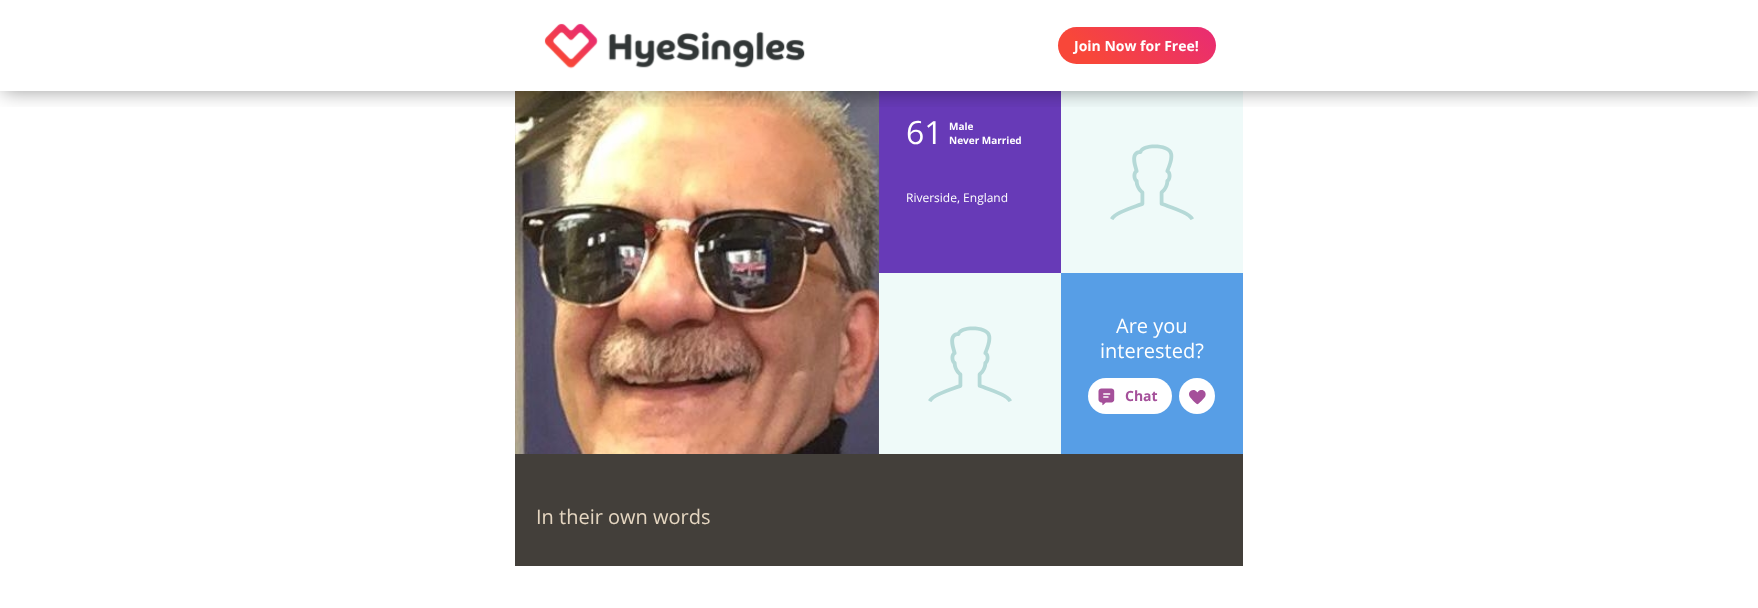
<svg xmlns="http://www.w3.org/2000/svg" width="1758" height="608">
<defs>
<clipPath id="clip1"><rect x="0" y="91" width="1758" height="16"/></clipPath>
<linearGradient id="g1" gradientUnits="userSpaceOnUse" x1="1088" y1="94" x2="1186" y2="-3.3"><stop offset="0.2" stop-color="#f84739"/><stop offset="1" stop-color="#e82b74"/></linearGradient>
</defs>
<rect width="100%" height="100%" fill="#fff"/>
<image x="515" y="91" width="364" height="363" href="media/2.png"/>
<rect x="879" y="91" width="364" height="363" fill="#effaf9"/>
<rect x="879" y="91" width="182" height="182" fill="#673ab7"/>
<g clip-path="url(#clip1)">
<rect x="3" width="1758" height="91" fill="#00000066" filter="blur(10px)"/>
</g>
<image x="544" y="23" width="261" height="46" href="media/1.png"/>
<rect x="1058" y="27" width="158" height="37" rx="18.5" fill="url(#g1)"/>
<text x="1074" y="51" style="font-family:Open Sans;font-size:14px;font-weight:bold;fill:#fff">Join Now for Free!</text>
<text x="906" y="144" style="font-family:Open Sans;font-size:32px;fill:#fff">61</text>
<text x="949" y="130" style="font-family:Open Sans;font-size:10px;font-weight:bold;fill:#fff">Male</text>
<text x="949" y="144" style="font-family:Open Sans;font-size:10px;font-weight:bold;fill:#fff">Never Married</text>
<text x="906" y="202" style="font-family:Open Sans;font-size:12px;fill:#fff">Riverside, England</text>
<image x="1110" y="144" width="84" height="76" href="media/3.png"/>
<image x="928" y="326" width="84" height="76" href="media/3.png"/>
<rect x="1061" y="273" width="182" height="181" fill="#579ee6"/>
<text x="1116" y="333" style="font-family:Open Sans;font-size:20px;fill:#fff">Are you</text>
<text x="1100" y="358" style="font-family:Open Sans;font-size:20px;fill:#fff">interested?</text>
<rect x="1088" y="378" width="84" height="36" rx="18" fill="#fff"/>
<image x="1098" y="388" width="17" height="18" href="media/4.png"/>
<text x="1125" y="401" style="font-family:Open Sans;font-size:14px;font-weight:bold;fill:#a5509a">Chat</text>
<circle cx="1197" cy="396" r="18" fill="#fff"/>
<image x="1189" y="390" width="17" height="15" href="media/5.png"/>
<rect x="515" y="454" width="728" height="112" fill="#433f3a"/>
<text x="536" y="524" style="font-family:Open Sans;font-size:20px;fill:#e5d6c1">In their own words</text>
</svg>
